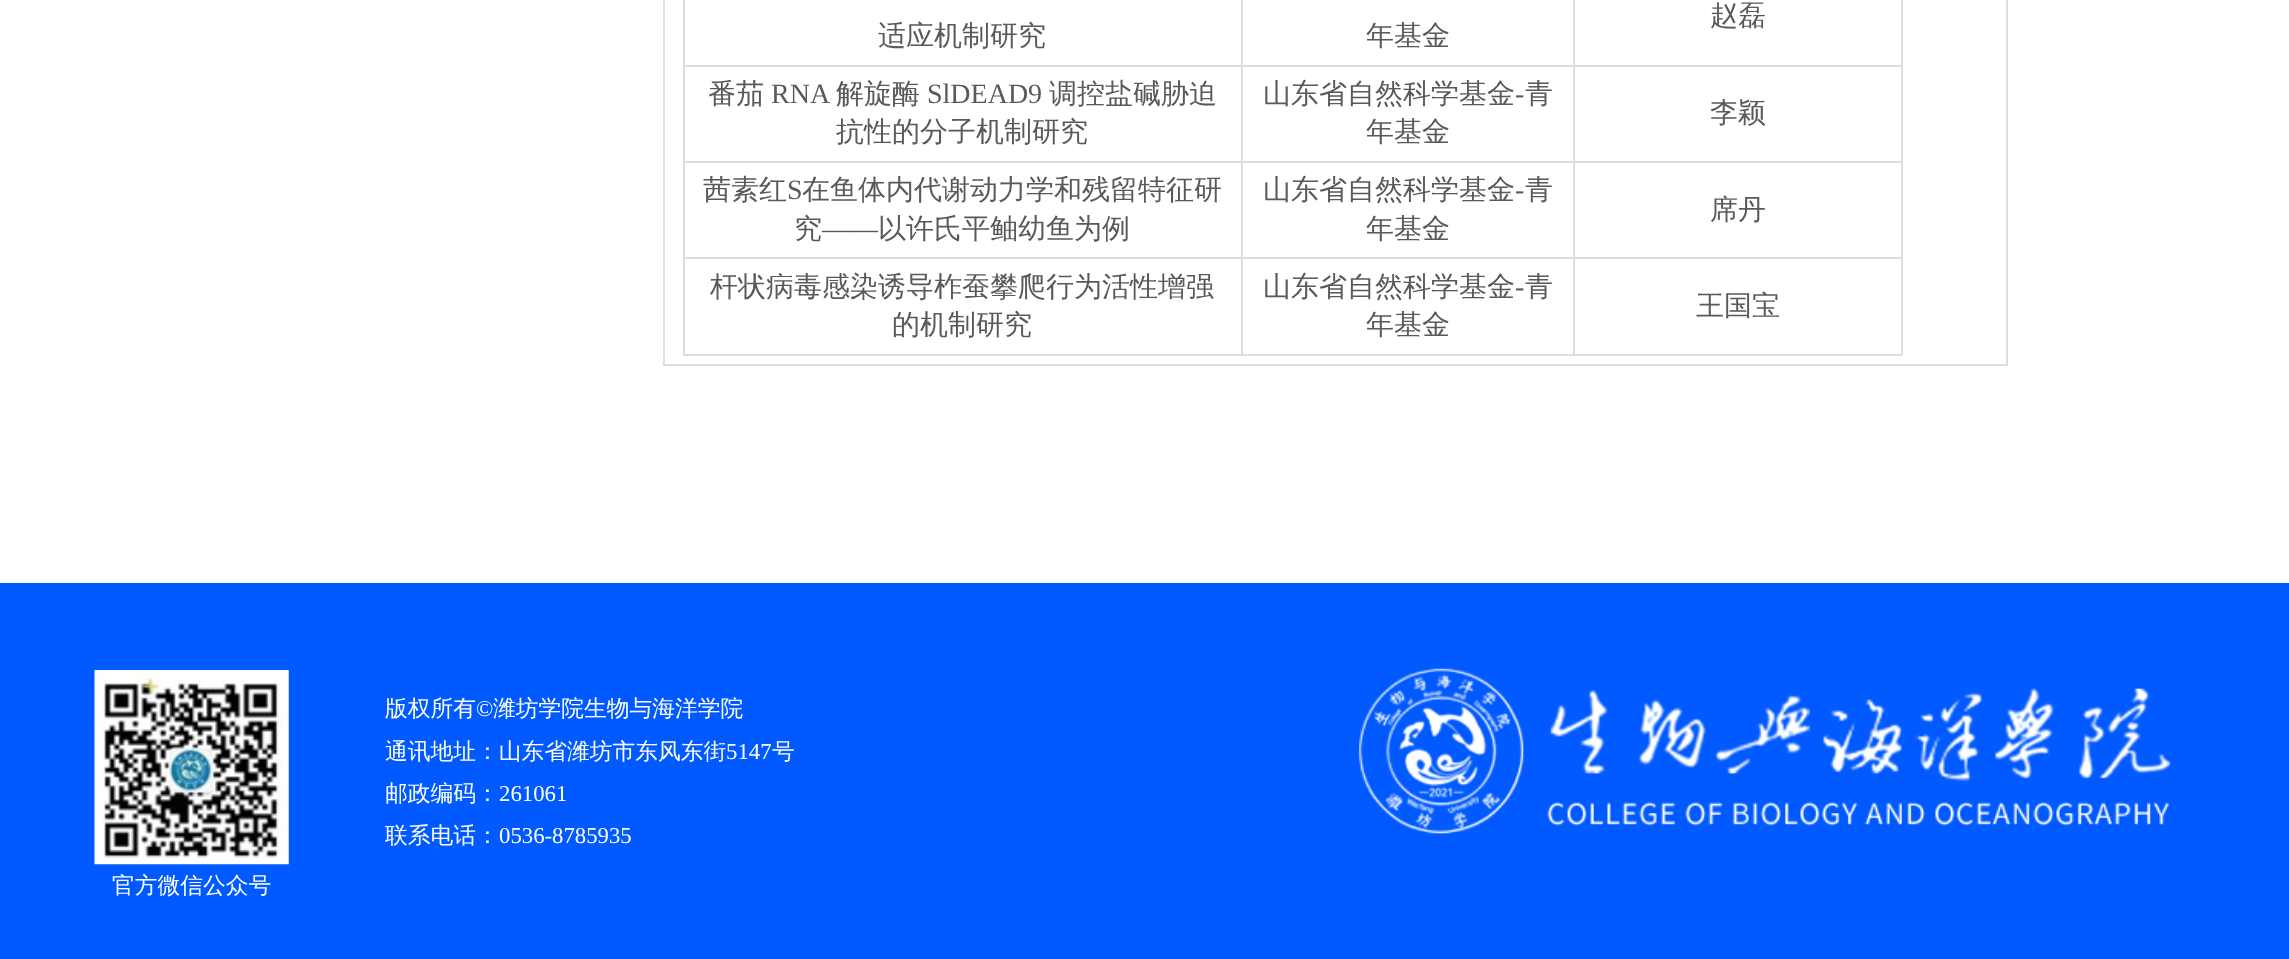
<svg xmlns="http://www.w3.org/2000/svg" width="2289" height="959">
<rect width="100%" height="100%" fill="#fff"/>
<rect x="2006" width="2" height="366" fill="#ddd"/>
<rect x="663" y="364" width="1344" height="2" fill="#ddd"/>
<rect x="663" width="2" height="366" fill="#ddd"/>
<rect x="1573" y="65" width="329" height="2" fill="#ddd"/>
<rect x="1573" y="161" width="329" height="2" fill="#ddd"/>
<rect x="1573" y="257" width="329" height="2" fill="#ddd"/>
<rect x="1901" y="257" width="2" height="98" fill="#ddd"/>
<rect x="1573" y="354" width="329" height="2" fill="#ddd"/>
<rect x="1573" y="257" width="2" height="98" fill="#ddd"/>
<rect x="1241" y="257" width="334" height="2" fill="#ddd"/>
<rect x="1573" y="161" width="2" height="98" fill="#ddd"/>
<rect x="1241" y="161" width="334" height="2" fill="#ddd"/>
<rect x="1573" y="65" width="2" height="98" fill="#ddd"/>
<rect x="1241" y="65" width="334" height="2" fill="#ddd"/>
<rect x="1573" width="2" height="67" fill="#ddd"/>
<text x="1710" y="25" style="font-family:WenQuanYi Zen Hei;font-size:28px;font-weight:500;fill:#595959">赵磊</text>
<text x="878" y="45" style="font-family:WenQuanYi Zen Hei;font-size:28px;font-weight:500;fill:#595959">适应机制研究</text>
<rect x="1241" y="354" width="334" height="2" fill="#ddd"/>
<rect x="1241" y="257" width="2" height="98" fill="#ddd"/>
<rect x="683" y="257" width="560" height="2" fill="#ddd"/>
<rect x="1241" y="161" width="2" height="98" fill="#ddd"/>
<rect x="683" y="161" width="560" height="2" fill="#ddd"/>
<rect x="1241" y="65" width="2" height="98" fill="#ddd"/>
<rect x="683" y="65" width="560" height="2" fill="#ddd"/>
<rect x="1241" width="2" height="67" fill="#ddd"/>
<text x="1366" y="45" style="font-family:WenQuanYi Zen Hei;font-size:28px;font-weight:500;fill:#595959">年基金</text>
<rect x="683" y="354" width="560" height="2" fill="#ddd"/>
<rect x="683" y="257" width="2" height="98" fill="#ddd"/>
<rect x="683" y="161" width="2" height="98" fill="#ddd"/>
<rect x="683" width="2" height="163" fill="#ddd"/>
<text x="708" y="103" style="font-family:WenQuanYi Zen Hei;font-size:28px;font-weight:500;fill:#595959">番茄</text>
<text x="771" y="103" style="font-family:Liberation Serif;font-size:28px;fill:#595959">RNA</text>
<text x="836" y="103" style="font-family:WenQuanYi Zen Hei;font-size:28px;font-weight:500;fill:#595959">解旋酶</text>
<text x="927" y="103" style="font-family:Liberation Serif;font-size:28px;fill:#595959">SlDEAD9</text>
<text x="1049" y="103" style="font-family:WenQuanYi Zen Hei;font-size:28px;font-weight:500;fill:#595959">调控盐碱胁迫</text>
<text x="836" y="141" style="font-family:WenQuanYi Zen Hei;font-size:28px;font-weight:500;fill:#595959">抗性的分子机制研究</text>
<text x="1263" y="103" style="font-family:WenQuanYi Zen Hei;font-size:28px;font-weight:500;fill:#595959">山东省自然科学基金</text>
<text x="1515" y="103" style="font-family:Liberation Serif;font-size:28px;fill:#595959">-</text>
<text x="1525" y="103" style="font-family:WenQuanYi Zen Hei;font-size:28px;font-weight:500;fill:#595959">青</text>
<text x="1366" y="141" style="font-family:WenQuanYi Zen Hei;font-size:28px;font-weight:500;fill:#595959">年基金</text>
<rect x="1901" y="161" width="2" height="98" fill="#ddd"/>
<rect x="1901" width="2" height="163" fill="#ddd"/>
<text x="1710" y="122" style="font-family:WenQuanYi Zen Hei;font-size:28px;font-weight:500;fill:#595959">李颖</text>
<text x="703" y="199" style="font-family:WenQuanYi Zen Hei;font-size:28px;font-weight:500;fill:#595959">茜素红</text>
<text x="787" y="199" style="font-family:Liberation Serif;font-size:28px;fill:#595959">S</text>
<text x="802" y="199" style="font-family:WenQuanYi Zen Hei;font-size:28px;font-weight:500;fill:#595959">在鱼体内代谢动力学和残留特征研</text>
<text x="794" y="238" style="font-family:WenQuanYi Zen Hei;font-size:28px;font-weight:500;fill:#595959">究</text>
<text x="822" y="238" style="font-family:Liberation Serif;font-size:28px;fill:#595959">——</text>
<text x="878" y="238" style="font-family:WenQuanYi Zen Hei;font-size:28px;font-weight:500;fill:#595959">以许氏平鲉幼鱼为例</text>
<text x="1263" y="199" style="font-family:WenQuanYi Zen Hei;font-size:28px;font-weight:500;fill:#595959">山东省自然科学基金</text>
<text x="1515" y="199" style="font-family:Liberation Serif;font-size:28px;fill:#595959">-</text>
<text x="1525" y="199" style="font-family:WenQuanYi Zen Hei;font-size:28px;font-weight:500;fill:#595959">青</text>
<text x="1366" y="238" style="font-family:WenQuanYi Zen Hei;font-size:28px;font-weight:500;fill:#595959">年基金</text>
<text x="1710" y="219" style="font-family:WenQuanYi Zen Hei;font-size:28px;font-weight:500;fill:#595959">席丹</text>
<text x="710" y="296" style="font-family:WenQuanYi Zen Hei;font-size:28px;font-weight:500;fill:#595959">杆状病毒感染诱导柞蚕攀爬行为活性增强</text>
<text x="892" y="334" style="font-family:WenQuanYi Zen Hei;font-size:28px;font-weight:500;fill:#595959">的机制研究</text>
<text x="1263" y="296" style="font-family:WenQuanYi Zen Hei;font-size:28px;font-weight:500;fill:#595959">山东省自然科学基金</text>
<text x="1515" y="296" style="font-family:Liberation Serif;font-size:28px;fill:#595959">-</text>
<text x="1525" y="296" style="font-family:WenQuanYi Zen Hei;font-size:28px;font-weight:500;fill:#595959">青</text>
<text x="1366" y="334" style="font-family:WenQuanYi Zen Hei;font-size:28px;font-weight:500;fill:#595959">年基金</text>
<text x="1696" y="315" style="font-family:WenQuanYi Zen Hei;font-size:28px;font-weight:500;fill:#595959">王国宝</text>
<rect y="583" width="2289" height="376" fill="#005aff"/>
<text x="385" y="716" style="font-family:WenQuanYi Zen Hei;font-size:22.75px;font-weight:500;fill:#fff">版权所有</text>
<text x="476" y="716" style="font-family:Liberation Serif;font-size:22.75px;fill:#fff">©</text>
<text x="493" y="716" style="font-family:WenQuanYi Zen Hei;font-size:22.75px;font-weight:500;fill:#fff">潍坊学院生物与海洋学院</text>
<text x="385" y="759" style="font-family:WenQuanYi Zen Hei;font-size:22.75px;font-weight:500;fill:#fff">通讯地址：山东省潍坊市东风东街</text>
<text x="726" y="759" style="font-family:Liberation Serif;font-size:22.75px;fill:#fff">5147</text>
<text x="772" y="759" style="font-family:WenQuanYi Zen Hei;font-size:22.75px;font-weight:500;fill:#fff">号</text>
<text x="385" y="801" style="font-family:WenQuanYi Zen Hei;font-size:22.75px;font-weight:500;fill:#fff">邮政编码：</text>
<text x="499" y="801" style="font-family:Liberation Serif;font-size:22.75px;fill:#fff">261061</text>
<text x="385" y="843" style="font-family:WenQuanYi Zen Hei;font-size:22.75px;font-weight:500;fill:#fff">联系电话：</text>
<text x="499" y="843" style="font-family:Liberation Serif;font-size:22.75px;fill:#fff">0536-8785935</text>
<image x="94" y="670" width="195" height="195" href="media/1.png"/>
<text x="112" y="893" style="font-family:WenQuanYi Zen Hei;font-size:22.75px;font-weight:500;fill:#fff">官方微信公众号</text>
<image x="1358" y="668" width="813" height="166" href="media/2.png"/>
</svg>
